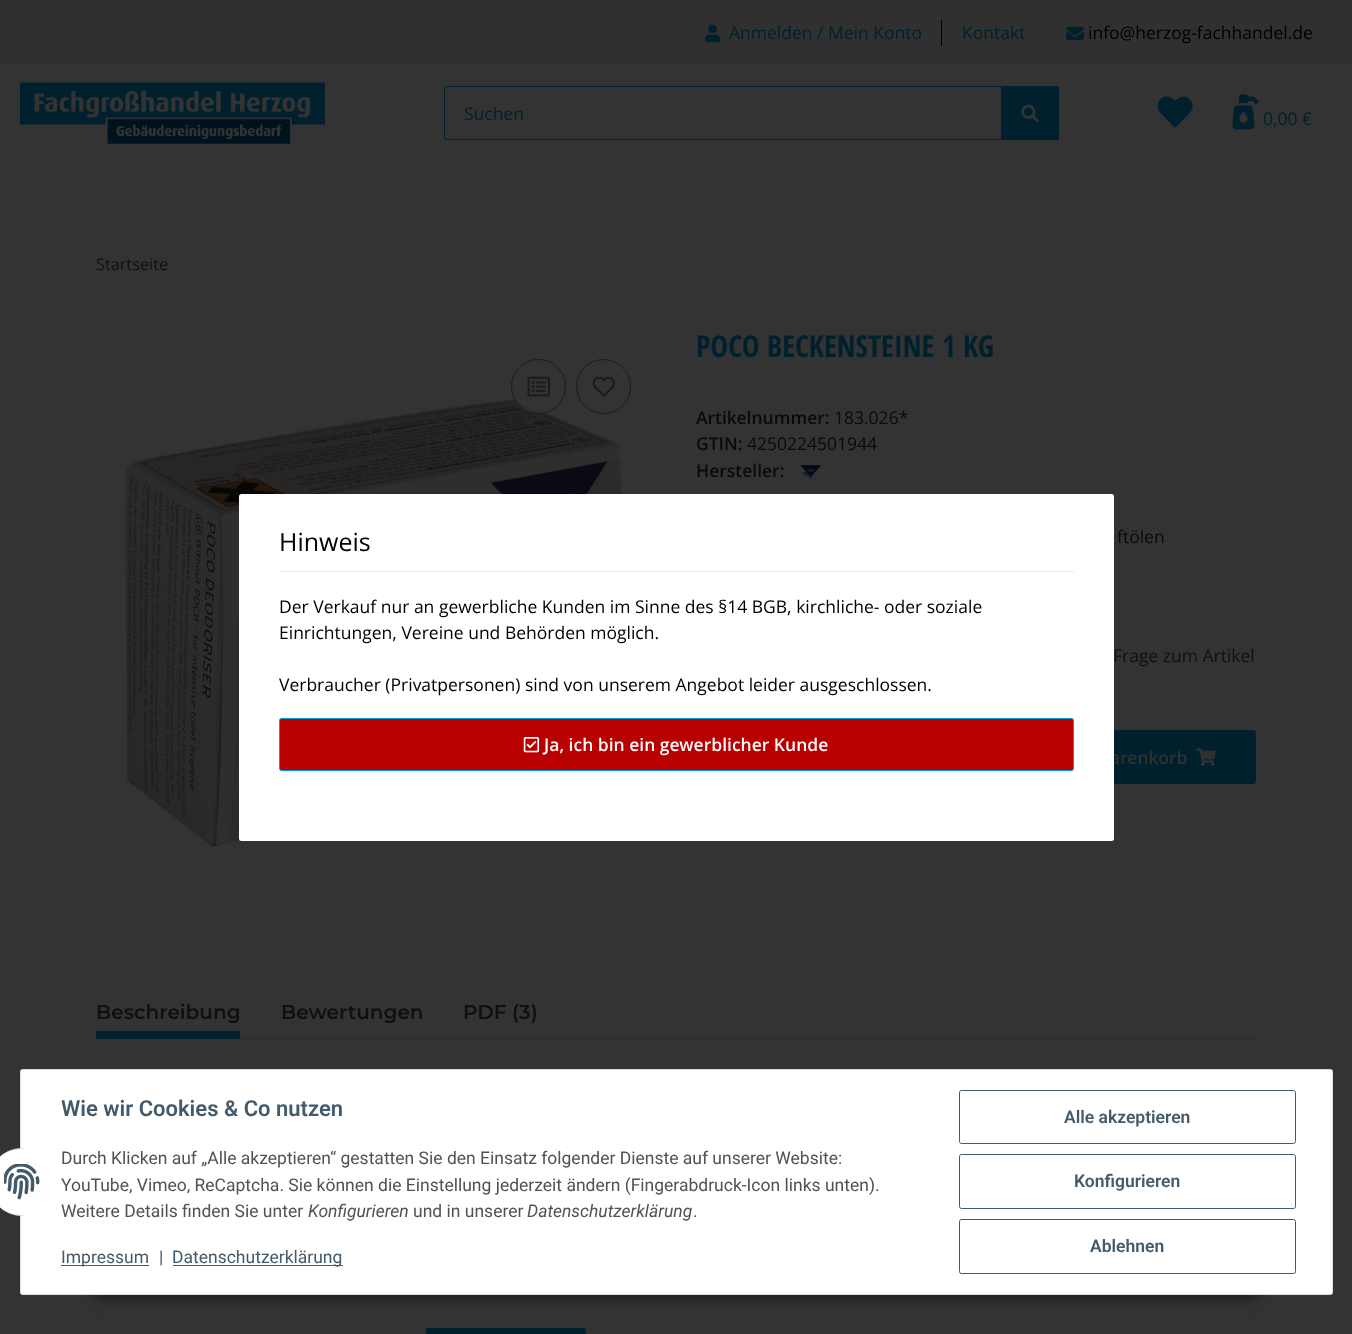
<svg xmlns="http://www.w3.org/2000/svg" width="1352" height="1334">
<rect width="100%" height="100%" fill="#333"/>
<rect width="1352" height="65" fill="#303030"/>
<image x="705" y="24" width="16" height="19" href="media/1.png"/>
<text x="729" y="39" style="font-family:Open Sans;font-size:17.5px;fill:#00202d">Anmelden / Mein Konto</text>
<rect x="941" y="20" width="1" height="26" fill="#000"/>
<text x="962" y="39" style="font-family:Open Sans;font-size:17.5px;fill:#00202d">Kontakt</text>
<image x="1066" y="26" width="18" height="14" href="media/2.png"/>
<text x="1088" y="39" style="font-family:Open Sans;font-size:17.5px;fill:#000">info@herzog-fachhandel.de</text>
<image x="20" y="82" width="305" height="62" href="media/3.png"/>
<rect x="444.5" y="86.5" width="558" height="53" rx="2" fill="none" stroke="#00202d"/>
<text x="464" y="120" style="font-family:Open Sans;font-size:17.5px;fill:#00202d">Suchen</text>
<rect x="1001" y="86" width="58" height="54" fill="#00202d"/>
<image x="1021" y="104" width="18" height="19" href="media/4.png"/>
<image x="1157" y="96" width="36" height="32" href="media/5.png"/>
<image x="1232" y="94" width="27" height="36" href="media/6.png"/>
<text x="1263" y="125" style="font-family:Open Sans;font-size:17.5px;fill:#00202d">0,00 €</text>
<rect x="96" y="241" width="1160" height="1" fill="#2f2f2f"/>
<rect x="96" y="288" width="1160" height="1" fill="#2f2f2f"/>
<text x="96" y="270" style="font-family:Open Sans;font-size:16.25px;fill:#101010">Startseite</text>
<image x="124" y="397" width="500" height="452" href="media/9.png"/>
<circle cx="538.5" cy="386.5" r="27.5" fill="#333333cc"/>
<circle cx="538.5" cy="386.5" r="27" fill="none" stroke="#161616cc"/>
<image x="527" y="376" width="23" height="21" href="media/7.png"/>
<circle cx="603.5" cy="386.5" r="27" fill="none" stroke="#1c1c1c"/>
<image x="592" y="376" width="23" height="21" href="media/8.png"/>
<text x="696" y="357" style="font-family:Open Sans Condensed;font-size:30px;font-weight:bold;fill:#00202d">POCO BECKENSTEINE 1 KG</text>
<text x="696" y="424" style="font-family:Open Sans;font-size:17.5px;font-weight:600;fill:#0a0a0a">Artikelnummer:</text>
<text x="834" y="424" style="font-family:Open Sans;font-size:17.5px;fill:#0a0a0a">183.026*</text>
<text x="696" y="450" style="font-family:Open Sans;font-size:17.5px;font-weight:600;fill:#0a0a0a">GTIN:</text>
<text x="747" y="450" style="font-family:Open Sans;font-size:17.5px;fill:#0a0a0a">4250224501944</text>
<text x="696" y="477" style="font-family:Open Sans;font-size:17.5px;font-weight:600;fill:#0a0a0a">Hersteller:</text>
<image x="800" y="465" width="24" height="14" href="media/10.png"/>
<text x="1117" y="543" style="font-family:Open Sans;font-size:17.5px;fill:#0a0a0a">ftölen</text>
<rect x="1114" y="595" width="142" height="1" fill="#2f2f2f"/>
<rect x="1114" y="689" width="142" height="1" fill="#2f2f2f"/>
<text x="1113" y="662" style="font-family:Open Sans;font-size:17.5px;fill:#101010">Frage zum Artikel</text>
<rect x="996.5" y="730.5" width="259" height="53" rx="2" fill="#00202d" stroke="#00202d"/>
<text x="1110" y="764" style="font-family:Open Sans;font-size:17.5px;font-weight:600;fill:#313132">arenkorb</text>
<image x="1196" y="748" width="20" height="18" href="media/11.png"/>
<rect x="240" y="1038" width="1016" height="1" fill="#2c2d2e"/>
<text x="96" y="1019" style="font-family:Montserrat;font-size:20px;font-weight:600;fill:#101010">Beschreibung</text>
<rect x="96" y="1031" width="144" height="8" fill="#00202d"/>
<text x="281" y="1019" style="font-family:Montserrat;font-size:20px;font-weight:600;fill:#101010">Bewertungen</text>
<text x="463" y="1019" style="font-family:Montserrat;font-size:20px;font-weight:600;fill:#101010">PDF (3)</text>
<rect x="96" y="1313" width="1160" height="1" fill="#2f2f2f"/>
<rect x="1255" y="1313" width="1" height="21" fill="#2f2f2f"/>
<rect x="96" y="1313" width="1" height="21" fill="#2f2f2f"/>
<rect x="426" y="1328" width="160" height="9" rx="2.5" fill="#00202d"/>
<rect x="239" y="494" width="875" height="347" rx="2.5" fill="#fff"/>
<rect x="279" y="571" width="795" height="1" fill="#ebebeb"/>
<text x="279" y="551" style="font-family:Open Sans;font-size:25px;fill:#000">Hinweis</text>
<text x="279" y="613" style="font-family:Open Sans;font-size:17.5px;fill:#000">Der Verkauf nur an gewerbliche Kunden im Sinne des §14 BGB, kirchliche- oder soziale</text>
<text x="279" y="639" style="font-family:Open Sans;font-size:17.5px;fill:#000">Einrichtungen, Vereine und Behörden möglich.</text>
<text x="279" y="691" style="font-family:Open Sans;font-size:17.5px;fill:#000">Verbraucher (Privatpersonen) sind von unserem Angebot leider ausgeschlossen.</text>
<rect x="279.5" y="718.5" width="794" height="52" rx="2" fill="#b90000" stroke="#009edf"/>
<image x="523" y="737" width="17" height="16" href="media/12.png"/>
<text x="544" y="751" style="font-family:Open Sans;font-size:17.5px;font-weight:600;fill:#fff">Ja, ich bin ein gewerblicher Kunde</text>
<rect x="86" y="1259" width="1180" height="40" rx="20" fill="#00000073" filter="blur(6px)"/>
<rect x="20.5" y="1069.5" width="1312" height="225" rx="2" fill="#fff" stroke="#ddd"/>
<circle cx="22" cy="1182" r="33.5" fill="#fff" stroke="#ddd"/>
<rect x="23" y="1148" width="33" height="68" fill="#fff"/>
<image x="4" y="1164" width="36" height="36" href="media/13.png"/>
<text x="61" y="1116" style="font-family:Roboto;font-size:22px;font-weight:600;fill:#435a6b">Wie wir Cookies &amp; Co nutzen</text>
<text x="61" y="1164" style="font-family:Roboto;font-size:17.5px;fill:#525252">Durch Klicken auf „Alle akzeptieren“ gestatten Sie den Einsatz folgender Dienste auf unserer Website:</text>
<text x="61" y="1191" style="font-family:Roboto;font-size:17.5px;fill:#525252">YouTube, Vimeo, ReCaptcha. Sie können die Einstellung jederzeit ändern (Fingerabdruck-Icon links unten).</text>
<text x="61" y="1217" style="font-family:Roboto;font-size:17.5px;fill:#525252">Weitere Details finden Sie unter</text>
<text x="308" y="1217" style="font-family:Roboto;font-size:17.5px;font-style:italic;fill:#525252">Konfigurieren</text>
<text x="413" y="1217" style="font-family:Roboto;font-size:17.5px;fill:#525252">und in unserer</text>
<text x="527" y="1217" style="font-family:Roboto;font-size:17.5px;font-style:italic;fill:#525252">Datenschutzerklärung</text>
<text x="693" y="1217" style="font-family:Roboto;font-size:17.5px;fill:#525252">.</text>
<rect x="61" y="1265" width="88" height="1" fill="#435a6b"/>
<text x="61" y="1263" style="font-family:Roboto;font-size:17.5px;fill:#435a6b">Impressum</text>
<text x="159" y="1263" style="font-family:Roboto;font-size:17.5px;fill:#525252">|</text>
<rect x="173" y="1265" width="170" height="1" fill="#435a6b"/>
<text x="172" y="1263" style="font-family:Roboto;font-size:17.5px;fill:#435a6b">Datenschutzerklärung</text>
<rect x="959.5" y="1090.5" width="336" height="53" rx="2" fill="none" stroke="#435a6b"/>
<text x="1064" y="1123" style="font-family:Roboto;font-size:17.5px;font-weight:600;fill:#435a6b">Alle akzeptieren</text>
<rect x="959.5" y="1154.5" width="336" height="54" rx="2" fill="none" stroke="#435a6b"/>
<text x="1074" y="1187" style="font-family:Roboto;font-size:17.5px;font-weight:600;fill:#435a6b">Konfigurieren</text>
<rect x="959.5" y="1219.5" width="336" height="54" rx="2" fill="none" stroke="#435a6b"/>
<text x="1090" y="1252" style="font-family:Roboto;font-size:17.5px;font-weight:600;fill:#435a6b">Ablehnen</text>
</svg>
